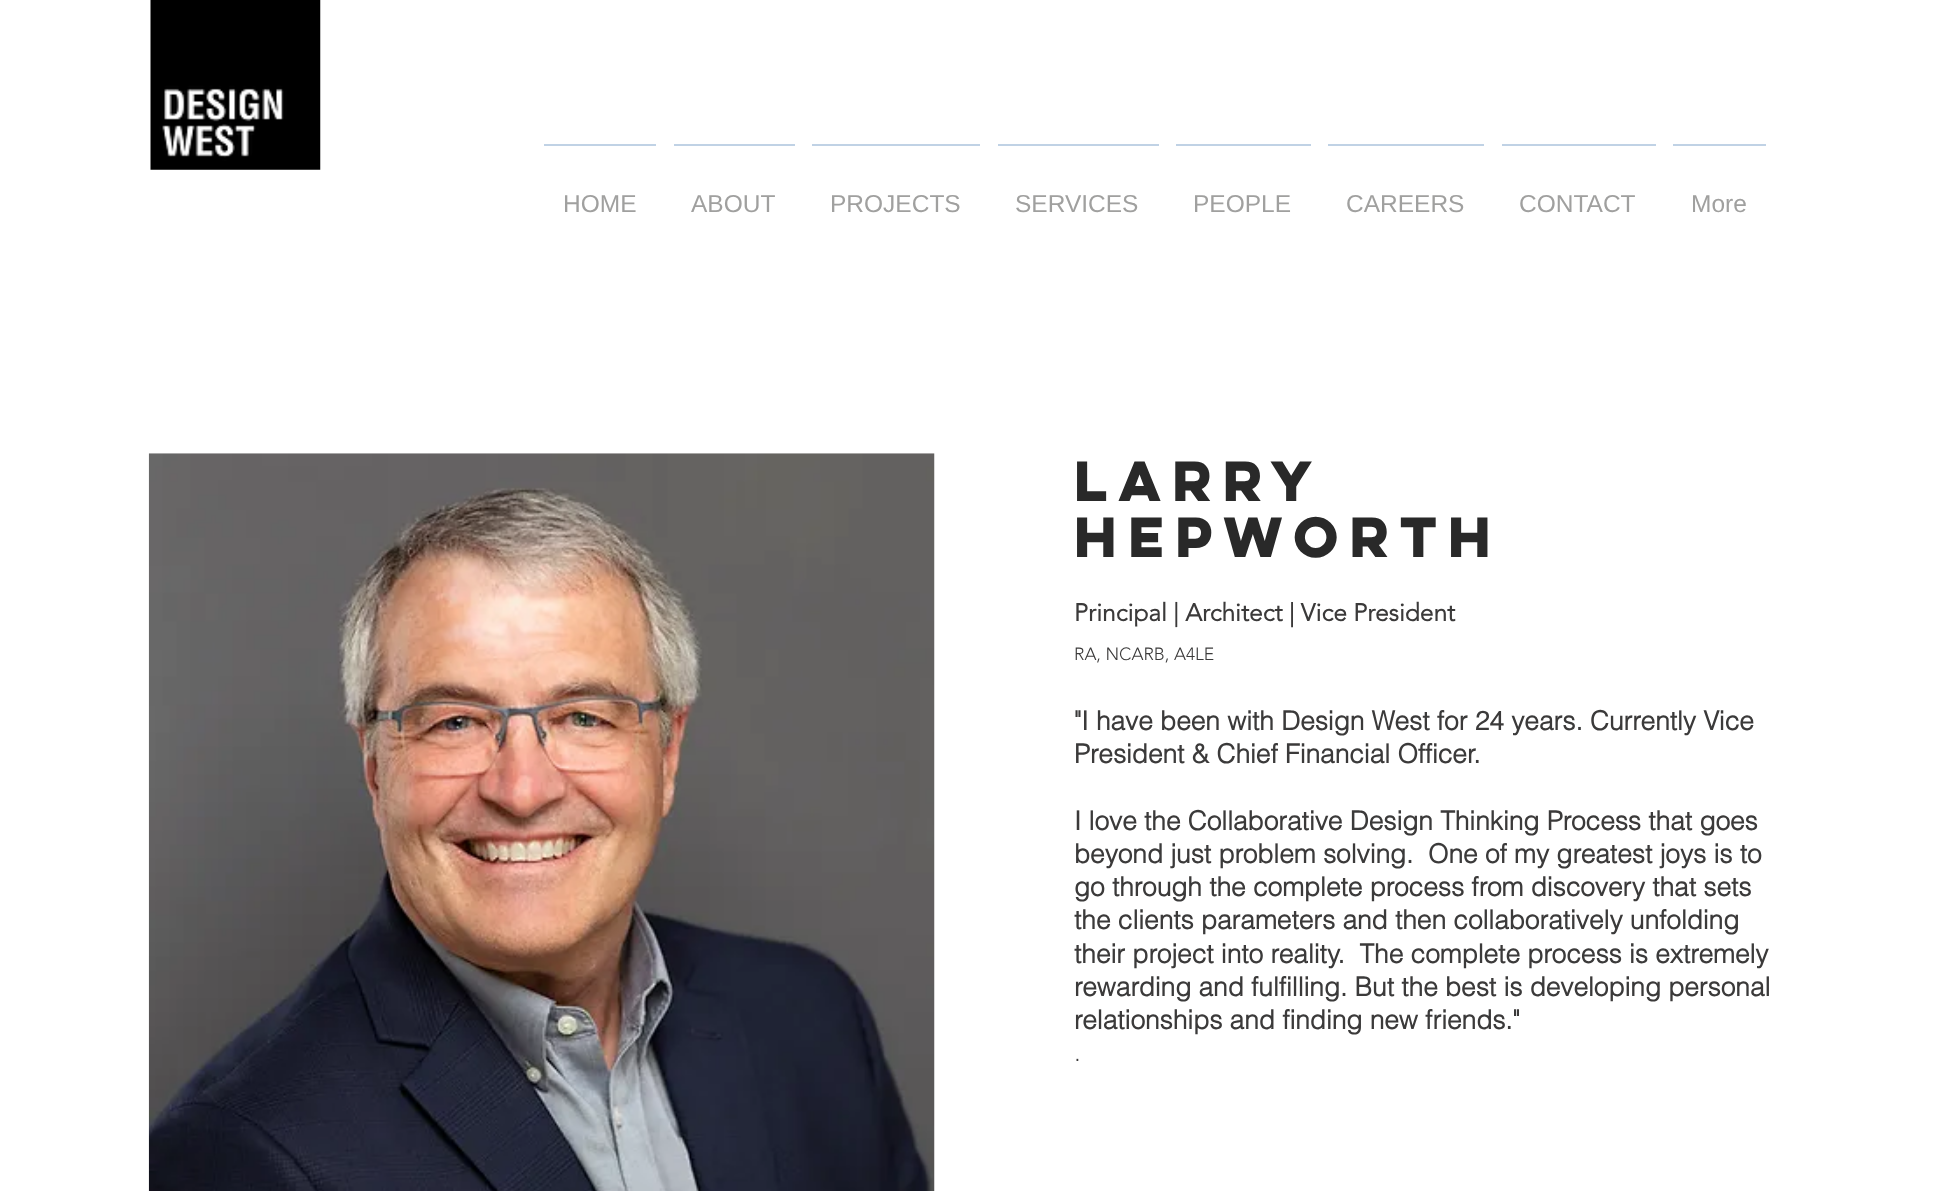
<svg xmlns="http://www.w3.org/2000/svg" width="1937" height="1191">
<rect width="100%" height="100%" fill="#fff"/>
<image x="150" y="0" width="171" height="170" href="media/1.png"/>
<rect x="544" y="144" width="112" height="2" fill="#c0d2e5"/>
<text x="563" y="212" style="font-family:Liberation Sans;font-size:24.5px;fill:#a0a09f">HOME</text>
<rect x="674" y="144" width="121" height="2" fill="#c0d2e5"/>
<text x="691" y="212" style="font-family:Liberation Sans;font-size:24.5px;fill:#a0a09f">ABOUT</text>
<rect x="812" y="144" width="168" height="2" fill="#c0d2e5"/>
<text x="830" y="212" style="font-family:Liberation Sans;font-size:24.5px;fill:#a0a09f">PROJECTS</text>
<rect x="998" y="144" width="161" height="2" fill="#c0d2e5"/>
<text x="1015" y="212" style="font-family:Liberation Sans;font-size:24.5px;fill:#a0a09f">SERVICES</text>
<rect x="1176" y="144" width="135" height="2" fill="#c0d2e5"/>
<text x="1193" y="212" style="font-family:Liberation Sans;font-size:24.5px;fill:#a0a09f">PEOPLE</text>
<rect x="1328" y="144" width="156" height="2" fill="#c0d2e5"/>
<text x="1346" y="212" style="font-family:Liberation Sans;font-size:24.5px;fill:#a0a09f">CAREERS</text>
<rect x="1502" y="144" width="154" height="2" fill="#c0d2e5"/>
<text x="1519" y="212" style="font-family:Liberation Sans;font-size:24.5px;fill:#a0a09f">CONTACT</text>
<rect x="1673" y="144" width="93" height="2" fill="#c0d2e5"/>
<text x="1691" y="212" style="font-family:Liberation Sans;font-size:24.5px;fill:#a0a09f">More</text>
<image x="148" y="453" width="787" height="738" href="media/2.png"/>
<text x="1074" y="501" style="font-family:'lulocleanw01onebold';font-size:50.75px;font-weight:bold;fill:#292929">Larry</text>
<text x="1074" y="557" style="font-family:'lulocleanw01onebold';font-size:50.75px;font-weight:bold;fill:#292929">hepworth</text>
<text x="1074" y="621" style="font-family:'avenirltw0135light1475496';font-size:24.5px;font-weight:bold;fill:#3b3a3a">Principal | Architect | Vice President</text>
<text x="1074" y="660" style="font-family:'avenirltw0135light1475496';font-size:17.5px;font-weight:300;fill:#3b3a3a">RA, NCARB, A4LE</text>
<text x="1074" y="730" style="font-family:helvetica;font-size:26.25px;font-weight:bold;fill:#3b3a3a">"I have been with Design West for 24 years. Currently Vice</text>
<text x="1074" y="763" style="font-family:helvetica;font-size:26.25px;font-weight:bold;fill:#3b3a3a">President &amp; Chief Financial Officer.</text>
<text x="1074" y="830" style="font-family:helvetica;font-size:26.25px;font-weight:bold;fill:#3b3a3a">I love the Collaborative Design Thinking Process that goes</text>
<text x="1074" y="863" style="font-family:helvetica;font-size:26.25px;font-weight:bold;fill:#3b3a3a" xml:space="preserve">beyond just problem solving.  One of my greatest joys is to</text>
<text x="1074" y="896" style="font-family:helvetica;font-size:26.25px;font-weight:bold;fill:#3b3a3a">go through the complete process from discovery that sets</text>
<text x="1074" y="929" style="font-family:helvetica;font-size:26.25px;font-weight:bold;fill:#3b3a3a">the clients parameters and then collaboratively unfolding</text>
<text x="1074" y="963" style="font-family:helvetica;font-size:26.25px;font-weight:bold;fill:#3b3a3a" xml:space="preserve">their project into reality.  The complete process is extremely</text>
<text x="1074" y="996" style="font-family:helvetica;font-size:26.25px;font-weight:bold;fill:#3b3a3a">rewarding and fulfilling. But the best is developing personal</text>
<text x="1074" y="1029" style="font-family:helvetica;font-size:26.25px;font-weight:bold;fill:#3b3a3a">relationships and finding new friends."</text>
<text x="1074" y="1061" style="font-family:helvetica;font-size:24.5px;font-weight:300;fill:#3b3a3a">.</text>
</svg>
